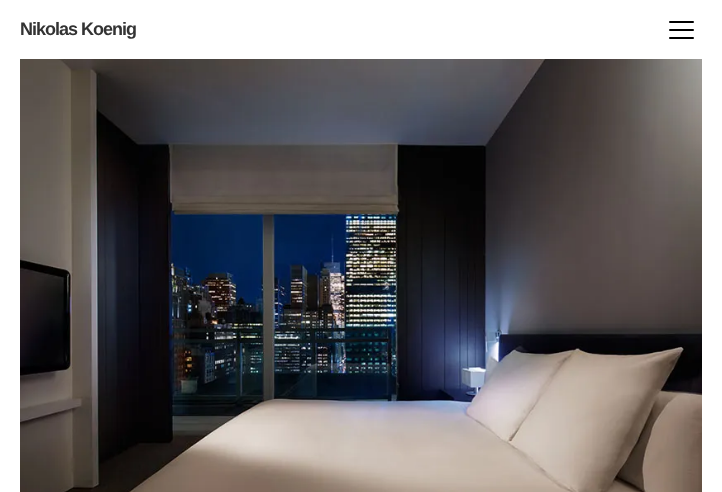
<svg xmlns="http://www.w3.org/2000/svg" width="722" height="492">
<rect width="100%" height="100%" fill="#fff"/>
<text x="20" y="35" style="font-family:Liberation Sans;font-size:18px;font-weight:bold;letter-spacing:-1px;fill:#333">Nikolas Koenig</text>
<rect x="669" y="21" width="25" height="2" rx="1" fill="#000"/>
<rect x="669" y="29" width="25" height="2" rx="1" fill="#000"/>
<rect x="669" y="37" width="25" height="2" rx="1" fill="#000"/>
<image x="20" y="59" width="682" height="433" href="media/1.png"/>
</svg>
